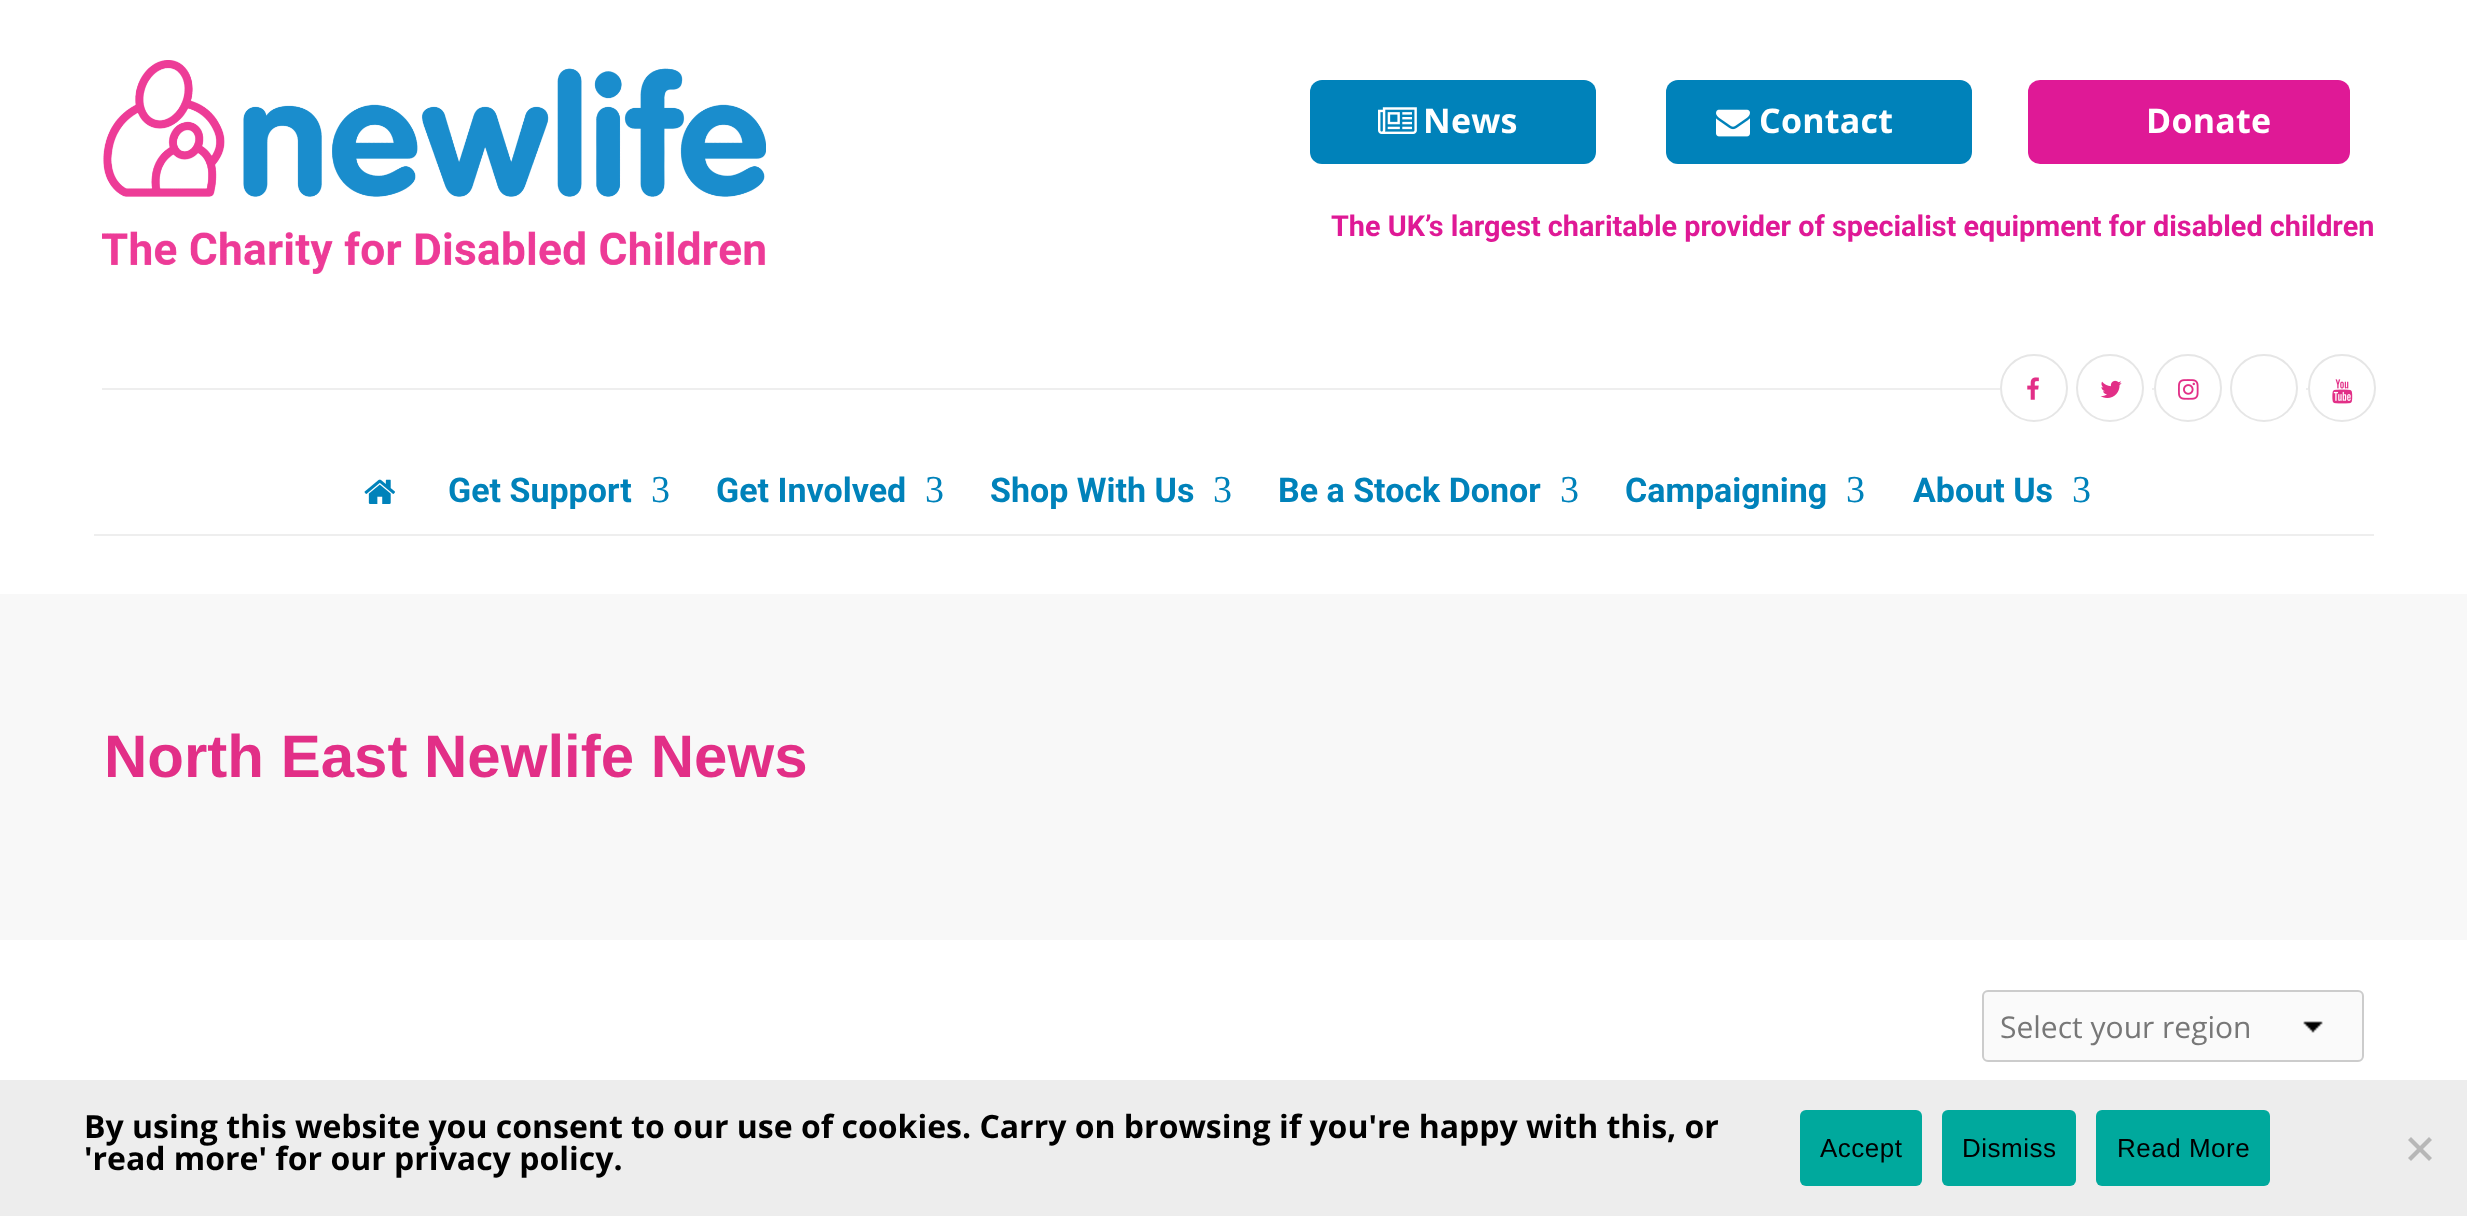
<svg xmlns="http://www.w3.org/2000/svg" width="2467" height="1216">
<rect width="100%" height="100%" fill="#fff"/>
<image x="102" y="60" width="664" height="214" href="media/1.png"/>
<rect x="1310" y="80" width="286" height="84" rx="12" fill="#0082ba"/>
<image x="1378" y="107" width="39" height="27" href="media/2.png"/>
<text x="1423" y="133" style="font-family:Open Sans;font-size:34px;font-weight:bold;letter-spacing:0.25px;fill:#fff">News</text>
<rect x="1666" y="80" width="306" height="84" rx="12" fill="#0082ba"/>
<image x="1716" y="109" width="34" height="28" href="media/3.png"/>
<text x="1759" y="133" style="font-family:Open Sans;font-size:34px;font-weight:bold;letter-spacing:0.25px;fill:#fff">Contact</text>
<rect x="2028" y="80" width="322" height="84" rx="12" fill="#df1996"/>
<text x="2146" y="133" style="font-family:Open Sans;font-size:34px;font-weight:bold;letter-spacing:0.25px;fill:#fff">Donate</text>
<text x="1331" y="236" style="font-family:Roboto;font-size:28.8px;font-weight:bold;fill:#df1996">The UK’s largest charitable provider of specialist equipment for disabled children</text>
<rect x="102" y="388" width="2206" height="2" fill="#eee"/>
<rect x="2000" y="388" width="152" height="2" fill="#fff"/>
<circle cx="2034" cy="388" r="33" fill="none" stroke="#e6e6e6" stroke-width="2"/>
<image x="2027" y="377" width="12" height="23" href="media/4.png"/>
<circle cx="2110" cy="388" r="33" fill="none" stroke="#e6e6e6" stroke-width="2"/>
<image x="2100" y="380" width="22" height="18" href="media/5.png"/>
<rect x="2154" y="388" width="152" height="2" fill="#fff"/>
<circle cx="2188" cy="388" r="33" fill="none" stroke="#e6e6e6" stroke-width="2"/>
<image x="2178" y="379" width="21" height="21" href="media/6.png"/>
<circle cx="2264" cy="388" r="33" fill="none" stroke="#e6e6e6" stroke-width="2"/>
<circle cx="2342" cy="388" r="33" fill="none" stroke="#e6e6e6" stroke-width="2"/>
<image x="2332" y="379" width="21" height="25" href="media/7.png"/>
<image x="364" y="479" width="31" height="25" href="media/8.png"/>
<text x="448" y="502" style="font-family:Roboto;font-size:34px;font-weight:bold;fill:#0082ba">Get Support</text>
<text x="651" y="502" style="font-family:Liberation Serif;font-size:38px;fill:#0082ba">3</text>
<text x="716" y="502" style="font-family:Roboto;font-size:34px;font-weight:bold;fill:#0082ba">Get Involved</text>
<text x="925" y="502" style="font-family:Liberation Serif;font-size:38px;fill:#0082ba">3</text>
<text x="990" y="502" style="font-family:Roboto;font-size:34px;font-weight:bold;fill:#0082ba">Shop With Us</text>
<text x="1213" y="502" style="font-family:Liberation Serif;font-size:38px;fill:#0082ba">3</text>
<text x="1278" y="502" style="font-family:Roboto;font-size:34px;font-weight:bold;fill:#0082ba">Be a Stock Donor</text>
<text x="1560" y="502" style="font-family:Liberation Serif;font-size:38px;fill:#0082ba">3</text>
<text x="1625" y="502" style="font-family:Roboto;font-size:34px;font-weight:bold;fill:#0082ba">Campaigning</text>
<text x="1846" y="502" style="font-family:Liberation Serif;font-size:38px;fill:#0082ba">3</text>
<text x="1913" y="502" style="font-family:Roboto;font-size:34px;font-weight:bold;fill:#0082ba">About Us</text>
<text x="2072" y="502" style="font-family:Liberation Serif;font-size:38px;fill:#0082ba">3</text>
<rect x="94" y="534" width="2280" height="2" fill="#eee"/>
<rect y="594" width="2467" height="346" fill="#f8f8f8"/>
<text x="104" y="777" style="font-family:Liberation Sans;font-size:60px;font-weight:bold;fill:#e22f87">North East Newlife News</text>
<rect x="1982" y="990" width="382" height="72" rx="6" fill="#fafafa"/>
<image x="2303" y="1021" width="20" height="12" href="media/9.png"/>
<rect x="1983" y="991" width="380" height="70" rx="5" fill="none" stroke="#ccc" stroke-width="2"/>
<text x="2000" y="1038" style="font-family:Open Sans;font-size:30px;fill:#777">Select your region</text>
<rect y="1080" width="2467" height="136" fill="#ededed"/>
<text x="84" y="1138" style="font-family:Open Sans;font-size:32px;font-weight:bold;fill:#000">By using this website you consent to our use of cookies. Carry on browsing if you're happy with this, or</text>
<text x="84" y="1170" style="font-family:Open Sans;font-size:32px;font-weight:bold;fill:#000">'read more' for our privacy policy.</text>
<rect x="1800" y="1110" width="122" height="76" rx="6" fill="#00a99d"/>
<text x="1820" y="1157" style="font-family:Liberation Sans;font-size:26px;letter-spacing:0.5px;fill:#000">Accept</text>
<rect x="1942" y="1110" width="134" height="76" rx="6" fill="#00a99d"/>
<text x="1962" y="1157" style="font-family:Liberation Sans;font-size:26px;letter-spacing:0.5px;fill:#000">Dismiss</text>
<rect x="2096" y="1110" width="174" height="76" rx="6" fill="#00a99d"/>
<text x="2117" y="1157" style="font-family:Liberation Sans;font-size:26px;letter-spacing:0.5px;fill:#000">Read More</text>
<path d="M2429 1137l3 3l-21 21l-3-3z" fill="#b7b7b7"/>
<path d="M2408 1140l3-3l21 21l-3 3z" fill="#b7b7b7"/>
</svg>
